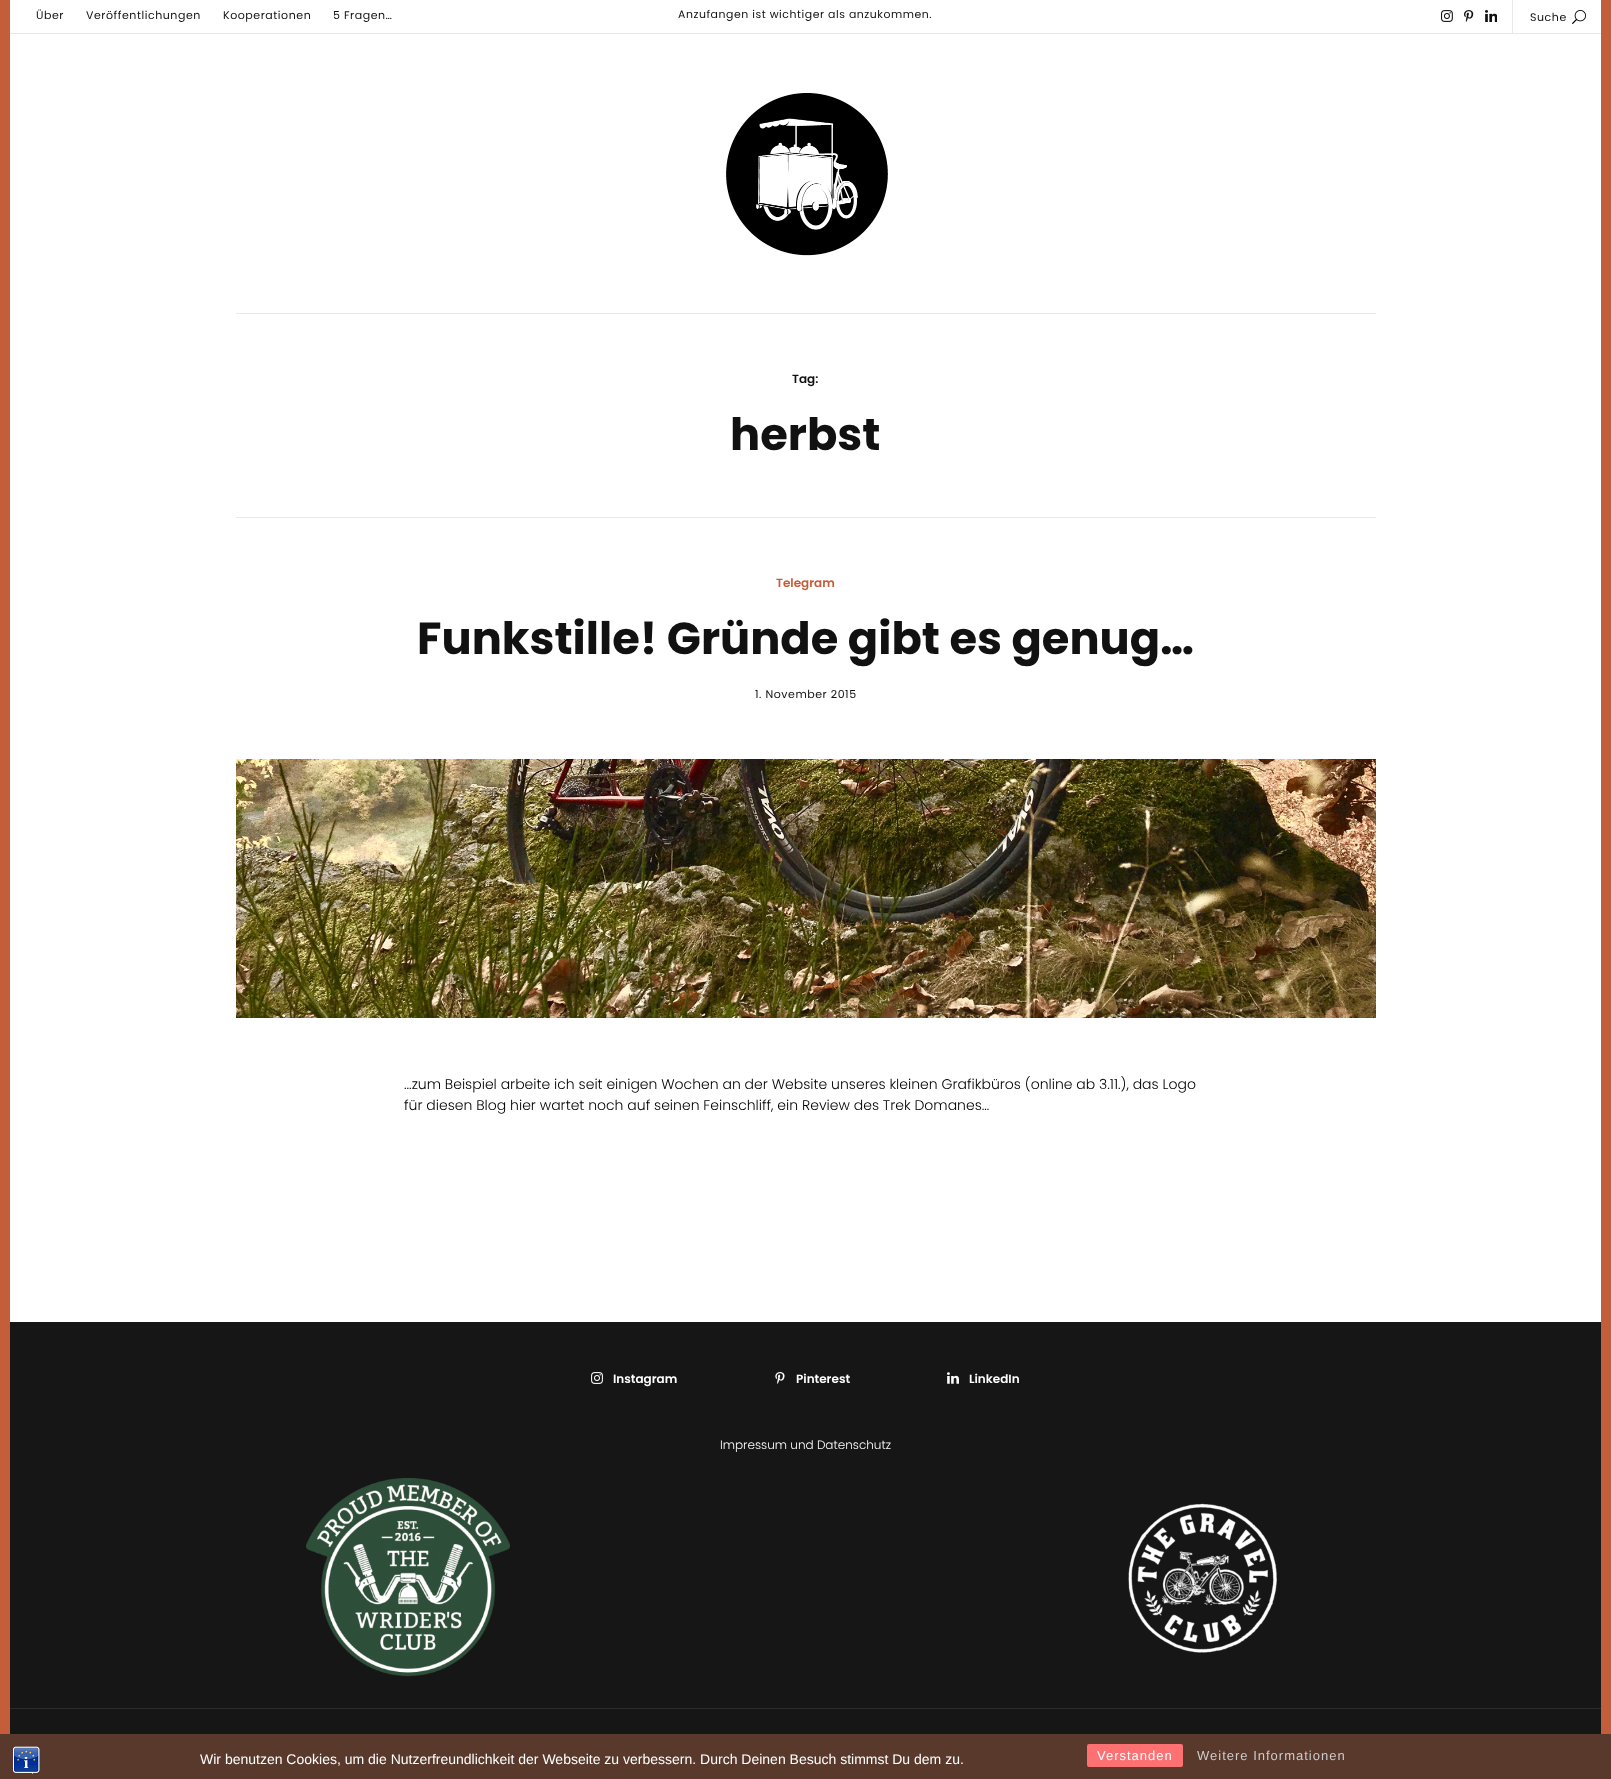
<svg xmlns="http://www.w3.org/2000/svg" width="1611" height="1779">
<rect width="100%" height="100%" fill="#fff"/>
<rect x="5" y="-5" width="1601" height="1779" fill="none" stroke="#c45e3a" stroke-width="10"/>
<rect x="10" y="33" width="1591" height="1" fill="#e8e8e8"/>
<text x="36" y="19" style="font-family:Poppins;font-size:11px;letter-spacing:0.55px;fill:#111">Über</text>
<text x="86" y="19" style="font-family:Poppins;font-size:11px;letter-spacing:0.55px;fill:#111">Veröffentlichungen</text>
<text x="223" y="19" style="font-family:Poppins;font-size:11px;letter-spacing:0.55px;fill:#111">Kooperationen</text>
<text x="333" y="19" style="font-family:Poppins;font-size:11px;letter-spacing:0.55px;fill:#111">5 Fragen…</text>
<text x="678" y="18" style="font-family:Poppins;font-size:10.9px;letter-spacing:0.55px;fill:#111">Anzufangen ist wichtiger als anzukommen.</text>
<image x="1441" y="10" width="12" height="12" href="media/1.png"/>
<image x="1464" y="10" width="10" height="12" href="media/2.png"/>
<image x="1485" y="10" width="12" height="12" href="media/3.png"/>
<rect x="1512" width="1" height="33" fill="#e8e8e8"/>
<text x="1530" y="21" style="font-family:Poppins;font-size:11px;letter-spacing:0.55px;fill:#111">Suche</text>
<image x="1572" y="10" width="14" height="14" href="media/4.png"/>
<image x="726" y="93" width="162" height="163" href="media/5.png"/>
<rect x="236" y="313" width="1140" height="1" fill="#e8e8e8"/>
<text x="792" y="383" style="font-family:Poppins;font-size:12px;font-weight:600;fill:#111">Tag:</text>
<text x="730" y="450" style="font-family:Poppins;font-size:44.75px;font-weight:bold;fill:#111">herbst</text>
<rect x="236" y="517" width="1140" height="1" fill="#e8e8e8"/>
<text x="776" y="587" style="font-family:Poppins;font-size:12px;font-weight:600;fill:#c45e3a">Telegram</text>
<text x="417" y="654" style="font-family:Poppins;font-size:44.75px;font-weight:bold;fill:#111">Funkstille! Gründe gibt es genug…</text>
<text x="755" y="698" style="font-family:Poppins;font-size:11px;letter-spacing:0.55px;fill:#111">1. November 2015</text>
<image x="236" y="759" width="1140" height="259" href="media/6.png"/>
<text x="404" y="1089" style="font-family:Poppins;font-size:14px;font-weight:300;fill:#000">...zum Beispiel arbeite ich seit einigen Wochen an der Website unseres kleinen Grafikbüros (online ab 3.11.), das Logo</text>
<text x="404" y="1110" style="font-family:Poppins;font-size:14px;font-weight:300;fill:#000">für diesen Blog hier wartet noch auf seinen Feinschliff, ein Review des Trek Domanes…</text>
<rect x="10" y="1322" width="1591" height="386" fill="#161616"/>
<image x="591" y="1372" width="12" height="12" href="media/7.png"/>
<text x="613" y="1383" style="font-family:Poppins;font-size:12px;font-weight:600;fill:#fff">Instagram</text>
<image x="775" y="1372" width="10" height="12" href="media/8.png"/>
<text x="796" y="1383" style="font-family:Poppins;font-size:12px;font-weight:600;fill:#fff">Pinterest</text>
<image x="947" y="1372" width="12" height="12" href="media/9.png"/>
<text x="969" y="1383" style="font-family:Poppins;font-size:12px;font-weight:600;fill:#fff">LinkedIn</text>
<text x="720" y="1449" style="font-family:Poppins;font-size:12px;font-weight:300;fill:#fff">Impressum und Datenschutz</text>
<image x="306" y="1478" width="204" height="199" href="media/10.png"/>
<image x="1128" y="1503" width="149" height="150" href="media/11.png"/>
<rect x="10" y="1708" width="1591" height="1" fill="#2b2b2b"/>
<rect x="10" y="1709" width="1591" height="25" fill="#161616"/>
<rect y="1734" width="1611" height="45" fill="#58392b"/>
<image x="13" y="1746" width="28" height="28" href="media/12.png"/>
<text x="200" y="1764" style="font-family:Liberation Sans;font-size:14px;fill:#fff">Wir benutzen Cookies, um die Nutzerfreundlichkeit der Webseite zu verbessern. Durch Deinen Besuch stimmst Du dem zu.</text>
<rect x="1087" y="1744" width="96" height="23" rx="2" fill="#fd7173"/>
<text x="1097" y="1760" style="font-family:Liberation Sans;font-size:13px;letter-spacing:1px;fill:#fff">Verstanden</text>
<text x="1197" y="1760" style="font-family:Liberation Sans;font-size:13px;letter-spacing:1px;fill:#ccc">Weitere Informationen</text>
</svg>
